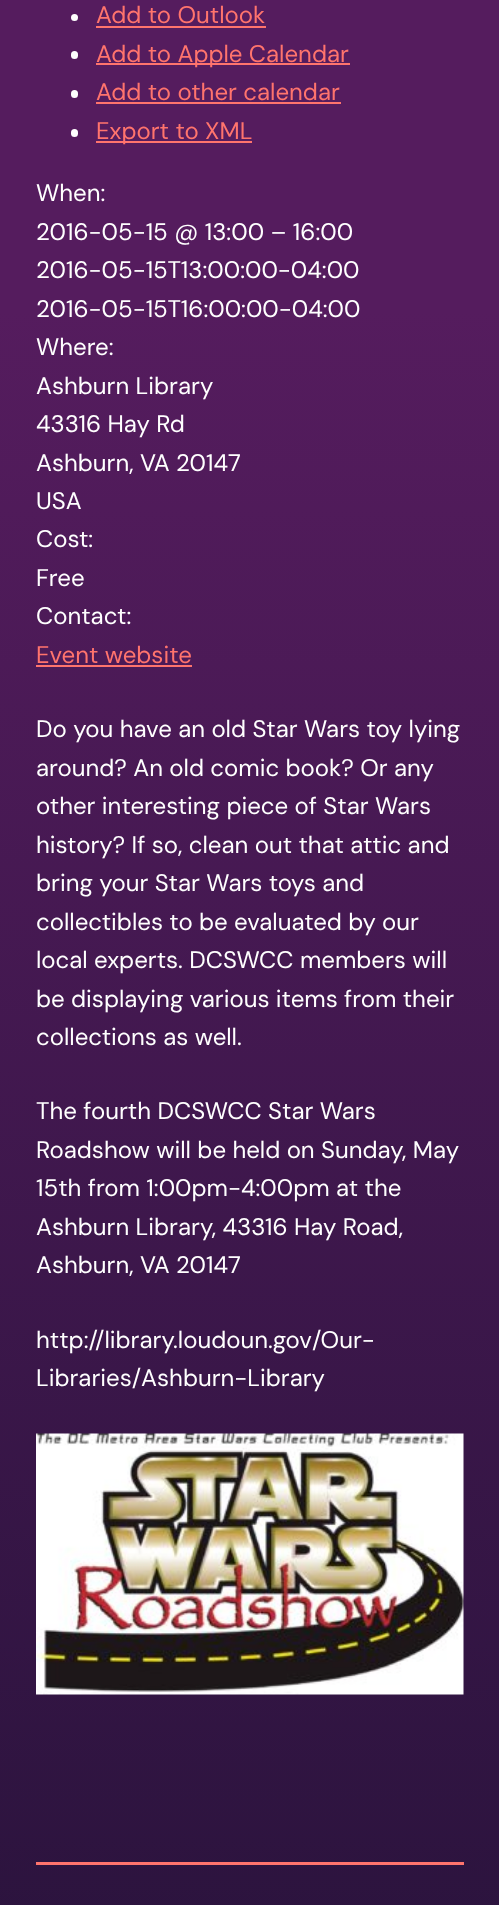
<svg xmlns="http://www.w3.org/2000/svg" width="499" height="1905">
<defs>
<linearGradient id="g1" gradientUnits="userSpaceOnUse" x1="250" y1="-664" x2="250" y2="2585"><stop offset="0" stop-color="#1b1031"/><stop offset="0" stop-color="#551c5e"/><stop offset="0.3" stop-color="#551c5e"/><stop offset="1" stop-color="#1b1031"/></linearGradient>
</defs>
<rect width="100%" height="100%" fill="#fff"/>
<rect width="499" height="1905" fill="url(#g1)"/>
<circle cx="74.5" cy="17.5" r="3.5" fill="#fff"/>
<text x="96" y="23" style="font-family:DM Sans;font-size:24px;fill:#ff746d">Add to Outlook</text>
<rect x="96" y="26" width="170" height="2" fill="#ff746d"/>
<rect x="71" y="51" width="7" height="8" rx="3.5" fill="#fff"/>
<rect x="96" y="63" width="254" height="2" fill="#ff746d"/>
<text x="96" y="62" style="font-family:DM Sans;font-size:24px;fill:#ff746d">Add to Apple Calendar</text>
<rect x="71" y="90" width="7" height="8" rx="3.5" fill="#fff"/>
<text x="96" y="100" style="font-family:DM Sans;font-size:24px;fill:#ff746d">Add to other calendar</text>
<rect x="96" y="102" width="245" height="2" fill="#ff746d"/>
<rect x="71" y="129" width="7" height="8" rx="3.5" fill="#fff"/>
<rect x="96" y="141" width="156" height="2" fill="#ff746d"/>
<text x="96" y="139" style="font-family:DM Sans;font-size:24px;fill:#ff746d">Export to XML</text>
<text x="36" y="201" style="font-family:DM Sans;font-size:24px;fill:#fff">When:</text>
<text x="36" y="240" style="font-family:DM Sans;font-size:24px;fill:#fff">2016-05-15 @ 13:00 – 16:00</text>
<text x="36" y="278" style="font-family:DM Sans;font-size:24px;fill:#fff">2016-05-15T13:00:00-04:00</text>
<text x="36" y="317" style="font-family:DM Sans;font-size:24px;fill:#fff">2016-05-15T16:00:00-04:00</text>
<text x="36" y="355" style="font-family:DM Sans;font-size:24px;fill:#fff">Where:</text>
<text x="36" y="394" style="font-family:DM Sans;font-size:24px;fill:#fff">Ashburn Library</text>
<text x="36" y="432" style="font-family:DM Sans;font-size:24px;fill:#fff">43316 Hay Rd</text>
<text x="36" y="471" style="font-family:DM Sans;font-size:24px;fill:#fff">Ashburn, VA 20147</text>
<text x="36" y="509" style="font-family:DM Sans;font-size:24px;fill:#fff">USA</text>
<text x="36" y="547" style="font-family:DM Sans;font-size:24px;fill:#fff">Cost:</text>
<text x="36" y="586" style="font-family:DM Sans;font-size:24px;fill:#fff">Free</text>
<text x="36" y="624" style="font-family:DM Sans;font-size:24px;fill:#fff">Contact:</text>
<text x="36" y="663" style="font-family:DM Sans;font-size:24px;fill:#ff746d">Event website</text>
<rect x="36" y="665" width="156" height="2" fill="#ff746d"/>
<text x="36" y="737" style="font-family:DM Sans;font-size:24px;fill:#fff">Do you have an old Star Wars toy lying</text>
<text x="36" y="776" style="font-family:DM Sans;font-size:24px;fill:#fff">around? An old comic book? Or any</text>
<text x="36" y="814" style="font-family:DM Sans;font-size:24px;fill:#fff">other interesting piece of Star Wars</text>
<text x="36" y="853" style="font-family:DM Sans;font-size:24px;fill:#fff">history? If so, clean out that attic and</text>
<text x="36" y="891" style="font-family:DM Sans;font-size:24px;fill:#fff">bring your Star Wars toys and</text>
<text x="36" y="930" style="font-family:DM Sans;font-size:24px;fill:#fff">collectibles to be evaluated by our</text>
<text x="36" y="968" style="font-family:DM Sans;font-size:24px;fill:#fff">local experts. DCSWCC members will</text>
<text x="36" y="1007" style="font-family:DM Sans;font-size:24px;fill:#fff">be displaying various items from their</text>
<text x="36" y="1045" style="font-family:DM Sans;font-size:24px;fill:#fff">collections as well.</text>
<text x="36" y="1119" style="font-family:DM Sans;font-size:24px;fill:#fff">The fourth DCSWCC Star Wars</text>
<text x="36" y="1158" style="font-family:DM Sans;font-size:24px;fill:#fff">Roadshow will be held on Sunday, May</text>
<text x="36" y="1196" style="font-family:DM Sans;font-size:24px;fill:#fff">15th from 1:00pm-4:00pm at the</text>
<text x="36" y="1235" style="font-family:DM Sans;font-size:24px;fill:#fff">Ashburn Library, 43316 Hay Road,</text>
<text x="36" y="1273" style="font-family:DM Sans;font-size:24px;fill:#fff">Ashburn, VA 20147</text>
<text x="36" y="1348" style="font-family:DM Sans;font-size:24px;fill:#fff">http://library.loudoun.gov/Our-</text>
<text x="36" y="1386" style="font-family:DM Sans;font-size:24px;fill:#fff">Libraries/Ashburn-Library</text>
<image x="36" y="1433" width="428" height="262" href="media/1.png"/>
<rect x="36" y="1862" width="428" height="3" fill="#ff746d"/>
</svg>
